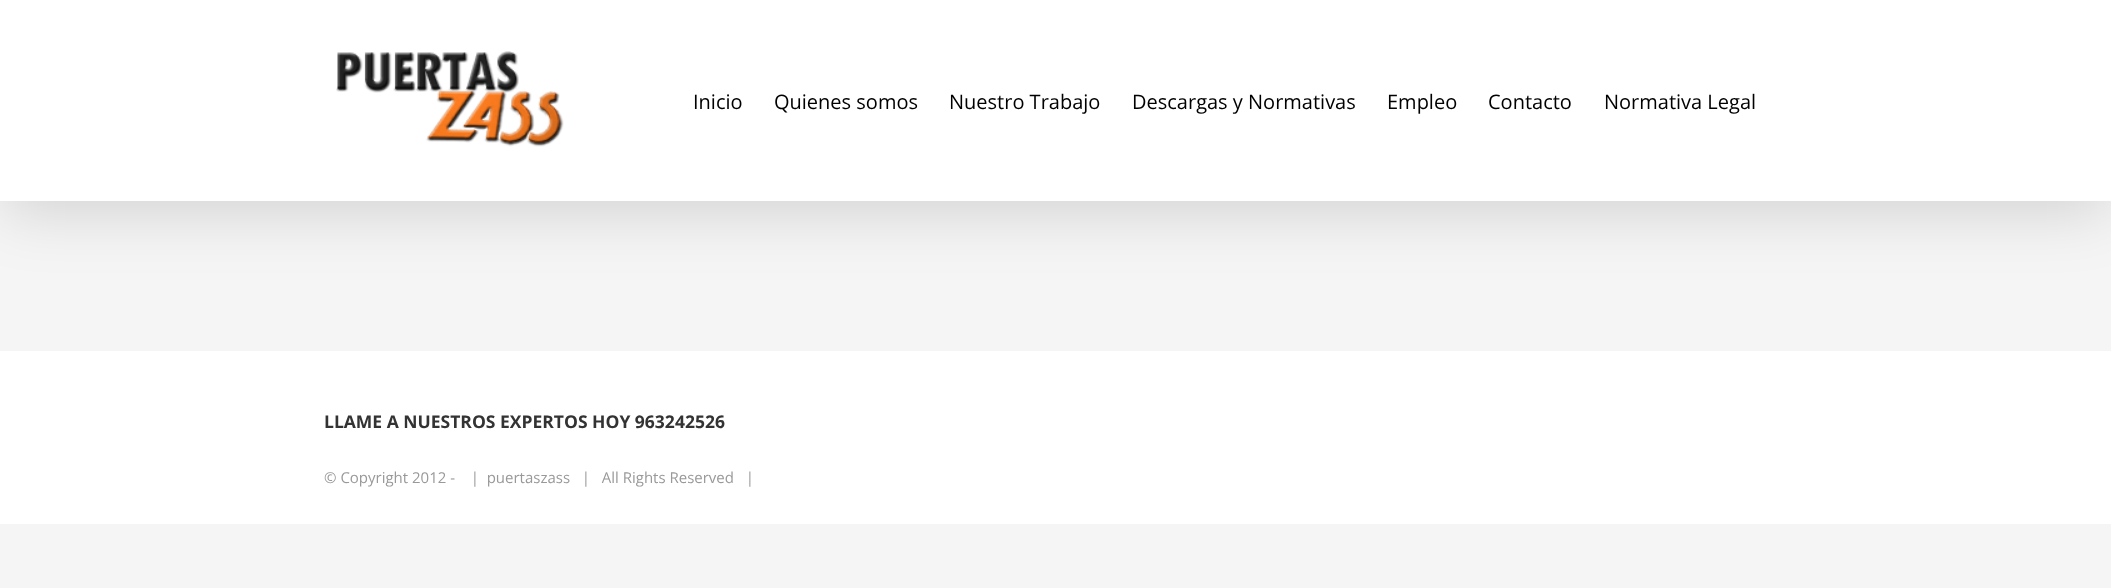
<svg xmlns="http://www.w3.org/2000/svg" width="2111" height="588">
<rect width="100%" height="100%" fill="#f5f5f5"/>
<rect x="3" y="15" width="2106" height="196" fill="#00000024" filter="blur(31px)"/>
<rect width="2111" height="201" fill="#fff"/>
<image x="336" y="51" width="228" height="96" href="media/1.png"/>
<text x="693" y="109" style="font-family:Open Sans;font-size:20px;fill:#000">Inicio</text>
<text x="774" y="109" style="font-family:Open Sans;font-size:20px;fill:#000">Quienes somos</text>
<text x="949" y="109" style="font-family:Open Sans;font-size:20px;fill:#000">Nuestro Trabajo</text>
<text x="1132" y="109" style="font-family:Open Sans;font-size:20px;fill:#000">Descargas y Normativas</text>
<text x="1387" y="109" style="font-family:Open Sans;font-size:20px;fill:#000">Empleo</text>
<text x="1488" y="109" style="font-family:Open Sans;font-size:20px;fill:#000">Contacto</text>
<text x="1604" y="109" style="font-family:Open Sans;font-size:20px;fill:#000">Normativa Legal</text>
<rect y="351" width="2111" height="173" fill="#fff"/>
<text x="324" y="428" style="font-family:Open Sans;font-size:17.5px;font-weight:bold;fill:#333">LLAME A NUESTROS EXPERTOS HOY 963242526</text>
<text x="324" y="483" style="font-family:Open Sans;font-size:15px;fill:#999" xml:space="preserve">© Copyright 2012 -    |  puertaszass   |   All Rights Reserved   |</text>
</svg>
